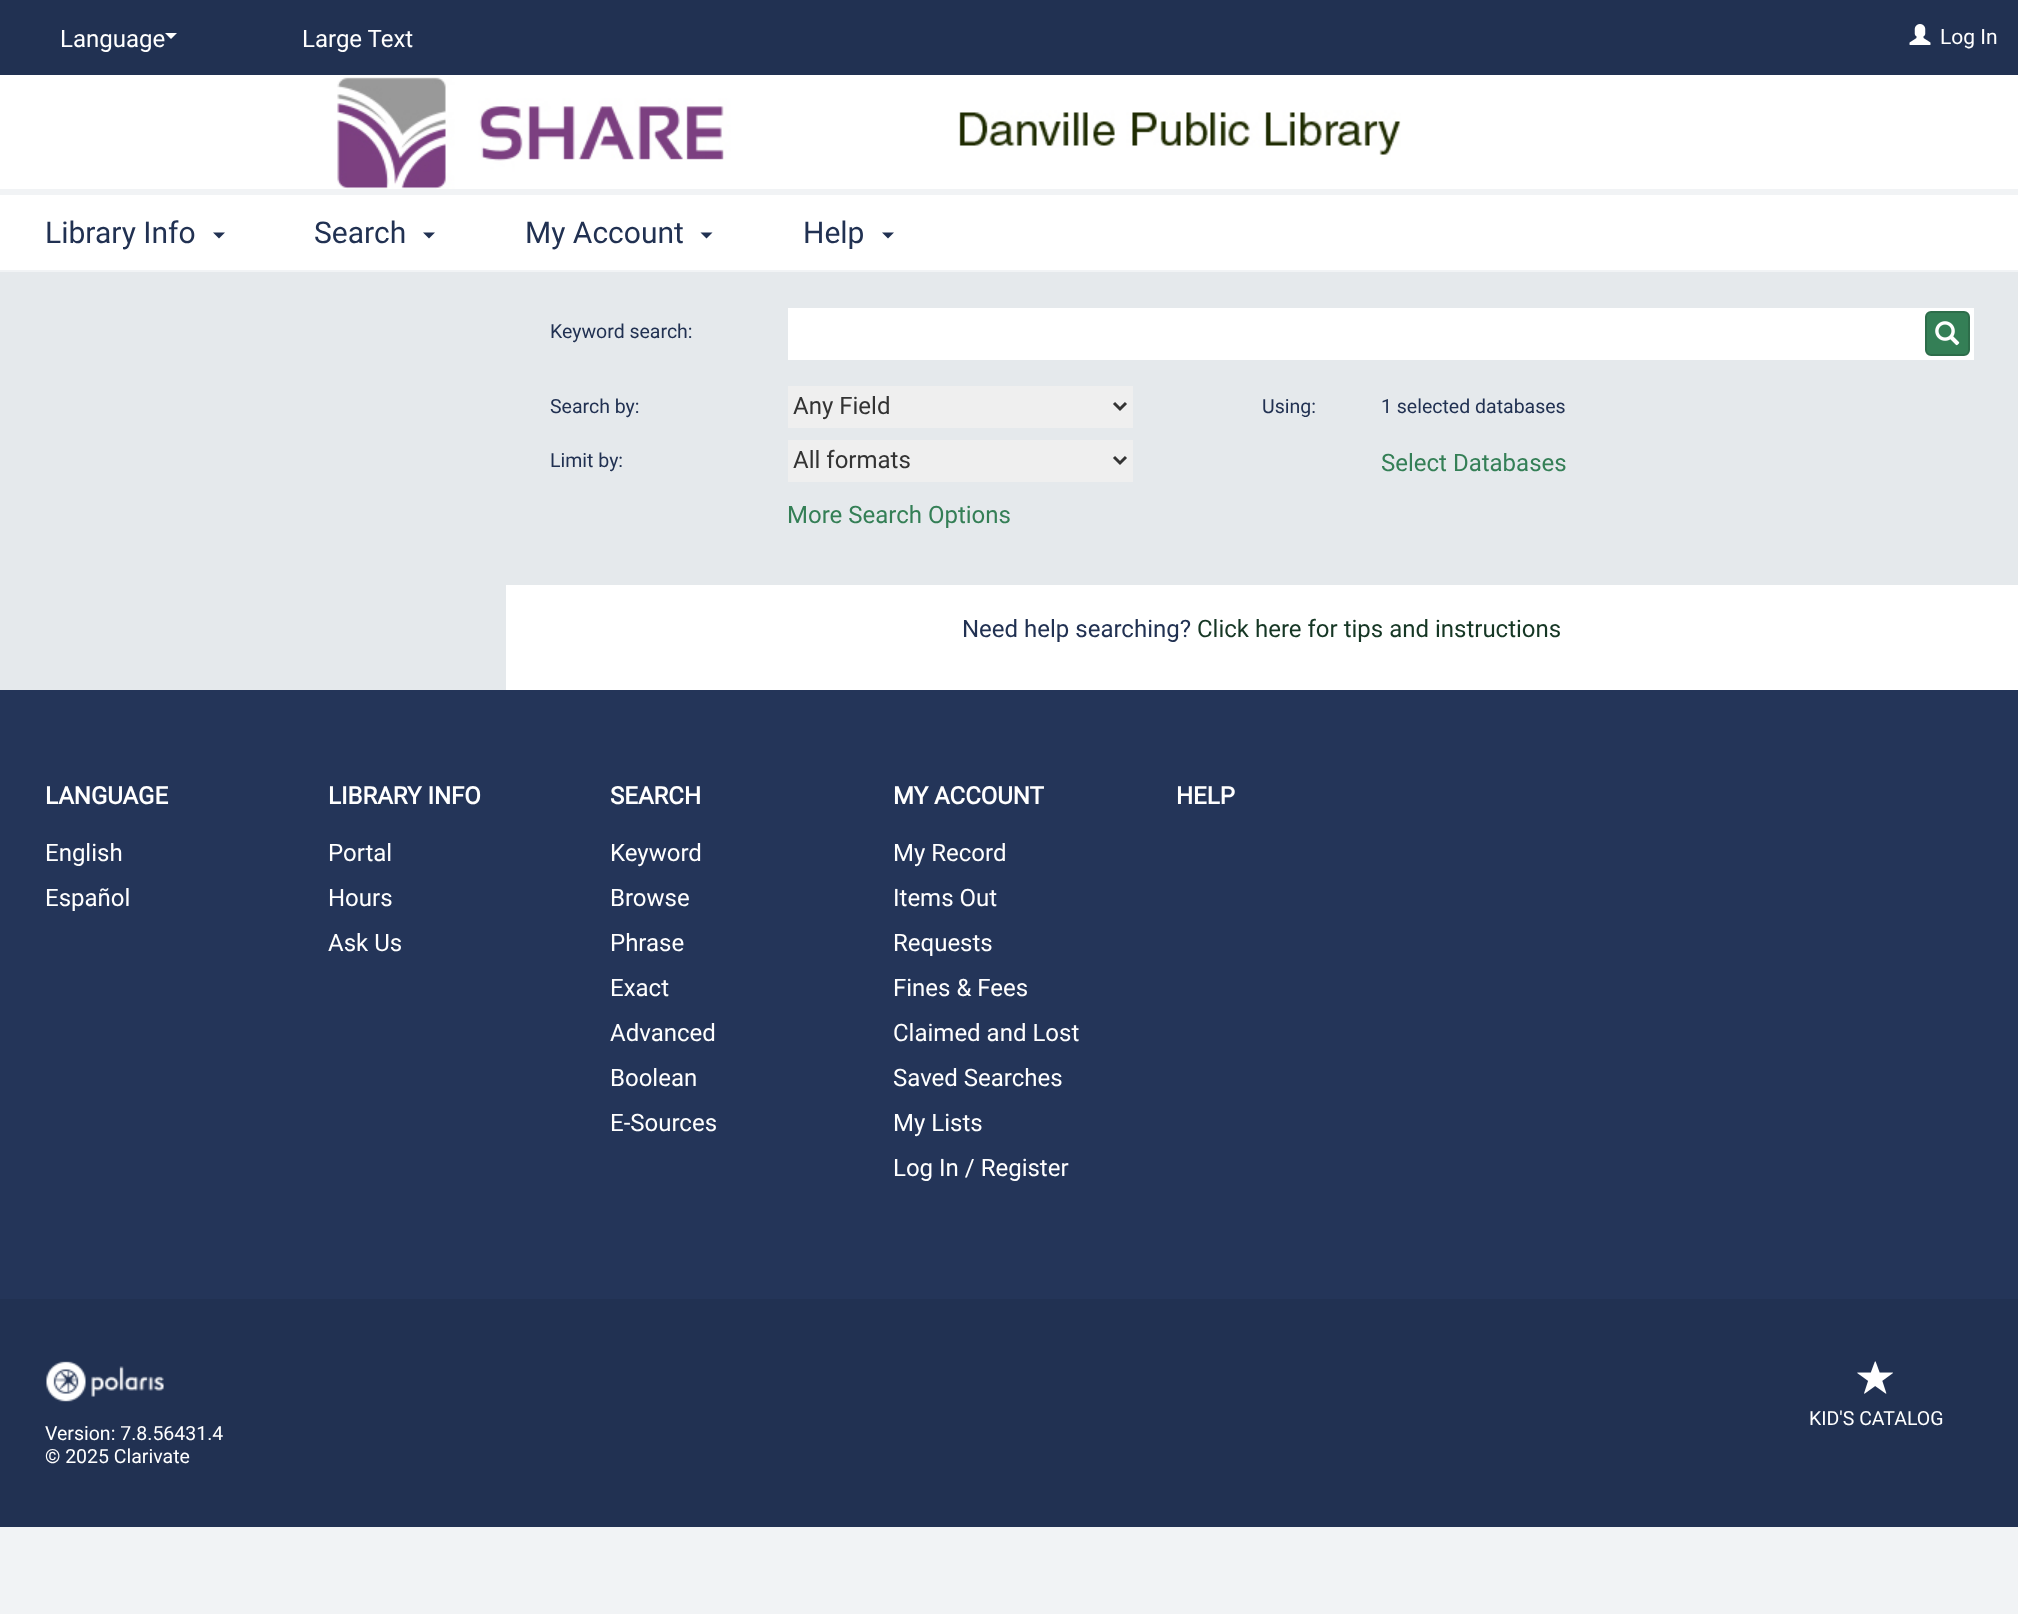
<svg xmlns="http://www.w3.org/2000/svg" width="2018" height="1614">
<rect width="100%" height="100%" fill="#f1f3f5"/>
<rect width="2018" height="75" fill="#213152"/>
<text x="60" y="47" style="font-family:Roboto;font-size:24px;fill:#fff">Language</text>
<path d="M165 33h12l-6 6z" fill="#fff"/>
<text x="302" y="47" style="font-family:Roboto;font-size:24px;fill:#fff">Large Text</text>
<rect y="195" width="2018" height="75" fill="#fff"/>
<text x="45" y="243" style="font-family:Roboto;font-size:30px;fill:#213152">Library Info</text>
<path d="M213 232.5h12l-6 6z" fill="#213152"/>
<text x="314" y="243" style="font-family:Roboto;font-size:30px;fill:#213152">Search</text>
<path d="M423 232.5h12l-6 6z" fill="#213152"/>
<text x="525" y="243" style="font-family:Roboto;font-size:30px;fill:#213152">My Account</text>
<path d="M700.5 232.5h12l-6 6z" fill="#213152"/>
<text x="803" y="243" style="font-family:Roboto;font-size:30px;fill:#213152">Help</text>
<path d="M882 232.5h12l-6 6z" fill="#213152"/>
<image x="1909" y="24" width="22" height="21" href="media/1.png"/>
<text x="1940" y="44" style="font-family:Roboto;font-size:21px;fill:#fff">Log In</text>
<rect y="75" width="2018" height="114" fill="#fff"/>
<image x="337" y="77" width="1064" height="112" href="media/2.png"/>
<rect y="272" width="506" height="418" fill="#e5e9ec"/>
<rect x="506" y="585" width="1512" height="105" fill="#fff"/>
<rect x="506" y="272" width="1512" height="313" fill="#e5e9ec"/>
<text x="550" y="338" style="font-family:Roboto;font-size:19.5px;fill:#213152">Keyword search:</text>
<rect x="788" y="308" width="1186" height="52" fill="#fff"/>
<rect x="1926" y="312" width="43" height="43" rx="5" fill="#347f56" stroke="#2d6d4a" stroke-width="2"/>
<image x="1935" y="321" width="25" height="25" href="media/3.png"/>
<text x="550" y="413" style="font-family:Roboto;font-size:19.5px;fill:#213152">Search by:</text>
<rect x="788" y="386" width="345" height="42" fill="#efefef"/>
<path d="M1114 403l6 6l6-6" fill="none" stroke="#333" stroke-width="3"/>
<text x="793" y="414" style="font-family:Roboto;font-size:24px;fill:#333">Any Field</text>
<text x="550" y="467" style="font-family:Roboto;font-size:19.5px;fill:#213152">Limit by:</text>
<rect x="788" y="440" width="345" height="42" fill="#efefef"/>
<path d="M1114 457l6 6l6-6" fill="none" stroke="#333" stroke-width="3"/>
<text x="793" y="468" style="font-family:Roboto;font-size:24px;fill:#333">All formats</text>
<text x="1262" y="413" style="font-family:Roboto;font-size:19.5px;fill:#213152">Using:</text>
<text x="1381" y="413" style="font-family:Roboto;font-size:19.5px;fill:#213152">1 selected databases</text>
<text x="1381" y="471" style="font-family:Roboto;font-size:24px;fill:#347f56">Select Databases</text>
<text x="787" y="523" style="font-family:Roboto;font-size:24px;fill:#347f56">More Search Options</text>
<text x="962" y="637" style="font-family:Roboto;font-size:24px;fill:#213152">Need help searching?</text>
<text x="1197" y="637" style="font-family:Roboto;font-size:24px;fill:#163725">Click here for tips and instructions</text>
<rect y="690" width="2018" height="609" fill="#243559"/>
<text x="45" y="804" style="font-family:Roboto;font-size:24px;font-weight:bold;fill:#fff">LANGUAGE</text>
<text x="45" y="861" style="font-family:Roboto;font-size:24px;fill:#fff">English</text>
<text x="45" y="906" style="font-family:Roboto;font-size:24px;fill:#fff">Español</text>
<text x="328" y="804" style="font-family:Roboto;font-size:24px;font-weight:bold;fill:#fff">LIBRARY INFO</text>
<text x="328" y="861" style="font-family:Roboto;font-size:24px;fill:#fff">Portal</text>
<text x="328" y="906" style="font-family:Roboto;font-size:24px;fill:#fff">Hours</text>
<text x="328" y="951" style="font-family:Roboto;font-size:24px;fill:#fff">Ask Us</text>
<text x="610" y="804" style="font-family:Roboto;font-size:24px;font-weight:bold;fill:#fff">SEARCH</text>
<text x="610" y="861" style="font-family:Roboto;font-size:24px;fill:#fff">Keyword</text>
<text x="610" y="906" style="font-family:Roboto;font-size:24px;fill:#fff">Browse</text>
<text x="610" y="951" style="font-family:Roboto;font-size:24px;fill:#fff">Phrase</text>
<text x="610" y="996" style="font-family:Roboto;font-size:24px;fill:#fff">Exact</text>
<text x="610" y="1041" style="font-family:Roboto;font-size:24px;fill:#fff">Advanced</text>
<text x="610" y="1086" style="font-family:Roboto;font-size:24px;fill:#fff">Boolean</text>
<text x="610" y="1131" style="font-family:Roboto;font-size:24px;fill:#fff">E-Sources</text>
<text x="893" y="804" style="font-family:Roboto;font-size:24px;font-weight:bold;fill:#fff">MY ACCOUNT</text>
<text x="893" y="861" style="font-family:Roboto;font-size:24px;fill:#fff">My Record</text>
<text x="893" y="906" style="font-family:Roboto;font-size:24px;fill:#fff">Items Out</text>
<text x="893" y="951" style="font-family:Roboto;font-size:24px;fill:#fff">Requests</text>
<text x="893" y="996" style="font-family:Roboto;font-size:24px;fill:#fff">Fines &amp; Fees</text>
<text x="893" y="1041" style="font-family:Roboto;font-size:24px;fill:#fff">Claimed and Lost</text>
<text x="893" y="1086" style="font-family:Roboto;font-size:24px;fill:#fff">Saved Searches</text>
<text x="893" y="1131" style="font-family:Roboto;font-size:24px;fill:#fff">My Lists</text>
<text x="893" y="1176" style="font-family:Roboto;font-size:24px;fill:#fff">Log In / Register</text>
<text x="1176" y="804" style="font-family:Roboto;font-size:24px;font-weight:bold;fill:#fff">HELP</text>
<rect y="1299" width="2018" height="228" fill="#213152"/>
<image x="1857" y="1361" width="36" height="33" href="media/4.png"/>
<text x="1809" y="1425" style="font-family:Roboto;font-size:19.5px;fill:#fff">KID'S CATALOG</text>
<image x="46" y="1361" width="118" height="41" href="media/5.png"/>
<text x="45" y="1440" style="font-family:Roboto;font-size:19.5px;fill:#fff">Version: 7.8.56431.4</text>
<text x="45" y="1463" style="font-family:Roboto;font-size:19.5px;fill:#fff">© 2025 Clarivate</text>
</svg>
